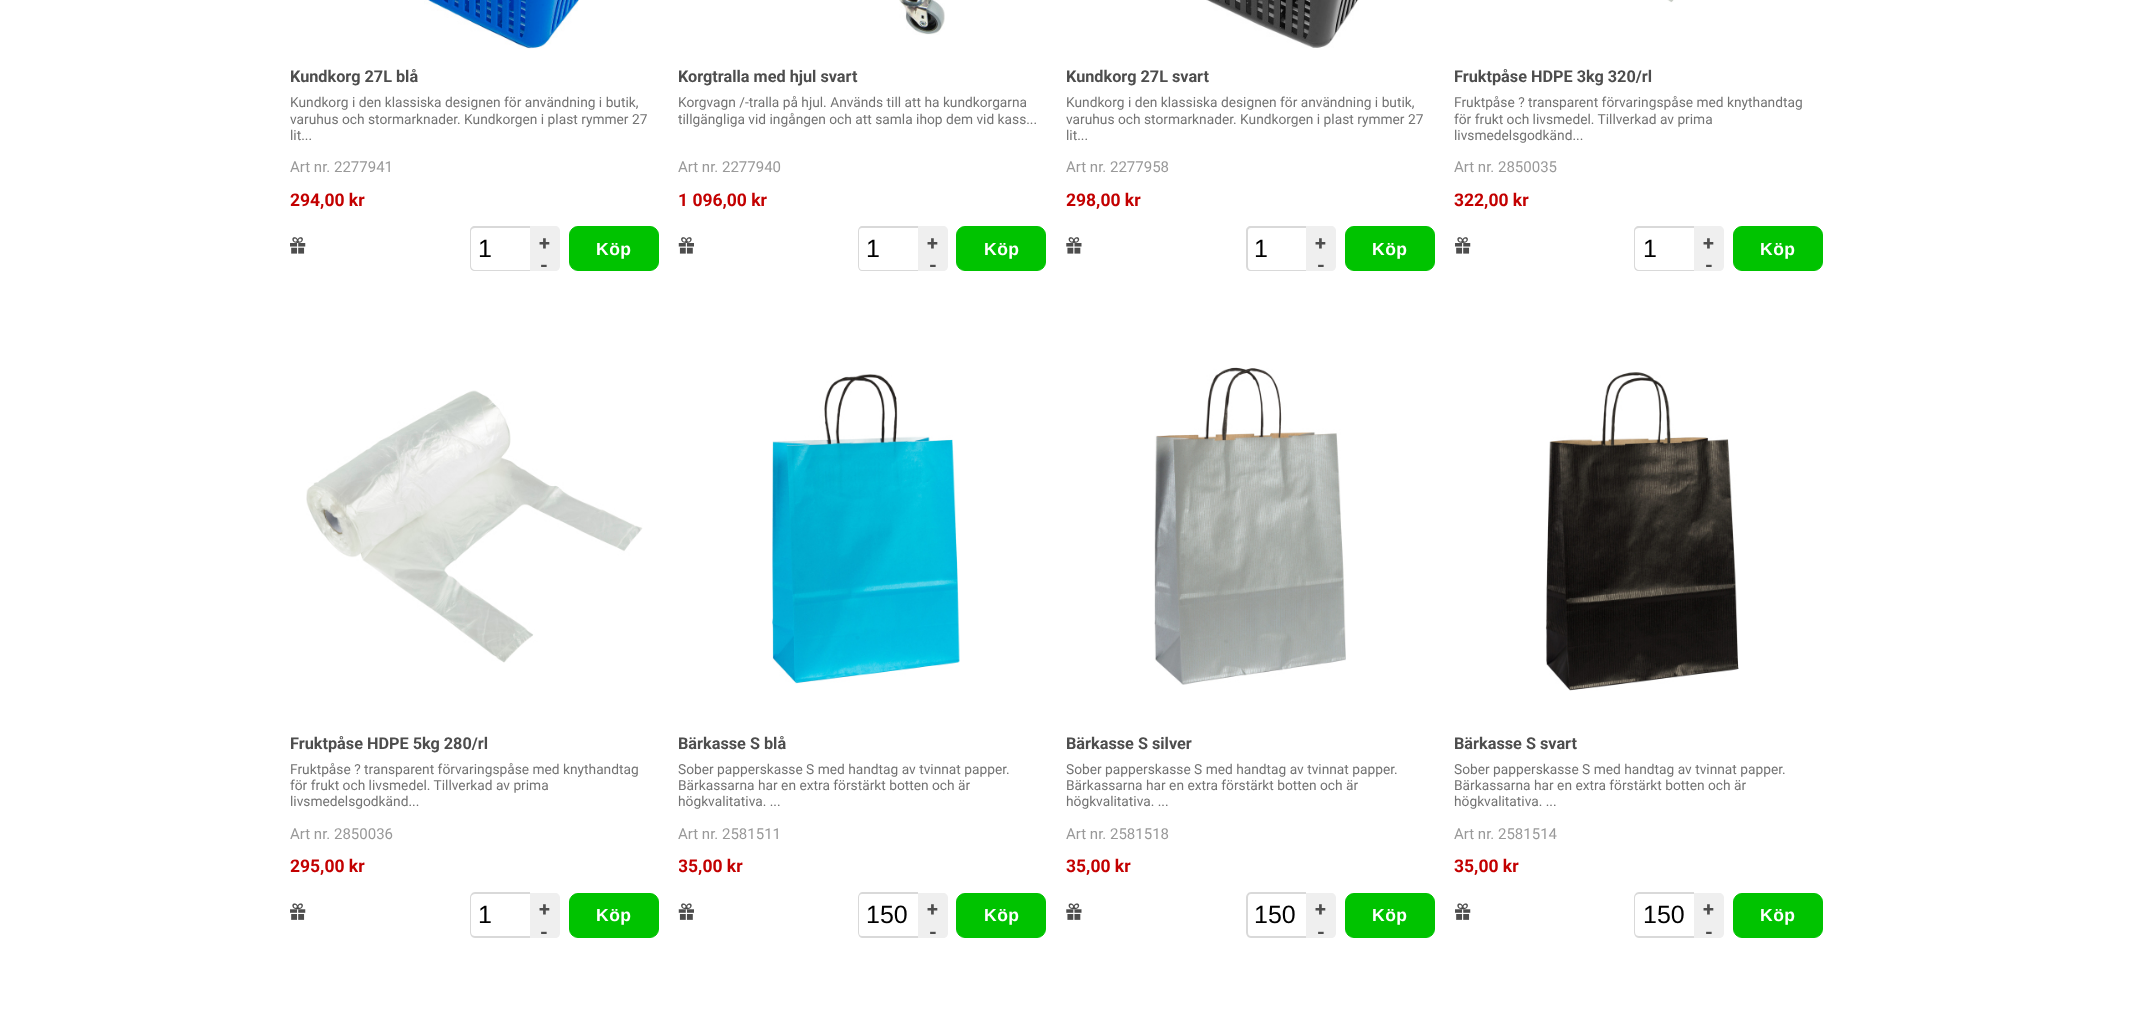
<svg xmlns="http://www.w3.org/2000/svg" width="2130" height="1016">
<defs>
<clipPath id="clip1"><rect x="679" y="853" width="367" height="27"/></clipPath>
</defs>
<rect width="100%" height="100%" fill="#fff"/>
<image x="424" y="0" width="155" height="49" href="media/1.png"/>
<text x="290" y="82" style="font-family:Roboto;font-size:16.25px;font-weight:bold;fill:#4d4d4d">Kundkorg 27L blå</text>
<text x="290" y="107" style="font-family:Roboto;font-size:13.75px;fill:#737373">Kundkorg i den klassiska designen för användning i butik,</text>
<text x="290" y="124" style="font-family:Roboto;font-size:13.75px;fill:#737373">varuhus och stormarknader. Kundkorgen i plast rymmer 27</text>
<text x="290" y="140" style="font-family:Roboto;font-size:13.75px;fill:#737373">lit...</text>
<text x="290" y="172" style="font-family:Roboto;font-size:15px;fill:#999">Art nr. 2277941</text>
<text x="290" y="206" style="font-family:Roboto;font-size:17.5px;font-weight:bold;fill:#c30000">294,00 kr</text>
<image x="290" y="237" width="16" height="17" href="media/2.png"/>
<path d="M475 226h55v45h-55c-3 0-5-2-5-5v-35c0-3 2-5 5-5zm0 2h55v42h-55c-2 0-4-2-4-4v-35c0-2 2-3 4-3z" fill="#d9d9d9" fill-rule="evenodd"/>
<text x="478" y="257" style="font-family:Liberation Sans;font-size:25px;fill:#000">1</text>
<path d="M530 226h25c3 0 5 2 5 5v18h-30z" fill="#efefef"/>
<text x="539" y="250" style="font-family:Roboto;font-size:20px;font-weight:bold;fill:#4d4d4d">+</text>
<path d="M530 249h30v17c0 3-2 5-5 5h-25z" fill="#efefef"/>
<text x="540" y="272" style="font-family:Roboto;font-size:20px;font-weight:bold;fill:#4d4d4d">-</text>
<rect x="569.5" y="226.5" width="89" height="44" rx="8.5" fill="#00c300" stroke="#00c300"/>
<text x="596" y="255" style="font-family:Liberation Sans;font-size:17.5px;font-weight:bold;letter-spacing:0.5px;fill:#fff">Köp</text>
<image x="899" y="0" width="46" height="35" href="media/3.png"/>
<text x="678" y="82" style="font-family:Roboto;font-size:16.25px;font-weight:bold;fill:#4d4d4d">Korgtralla med hjul svart</text>
<text x="678" y="107" style="font-family:Roboto;font-size:13.75px;fill:#737373">Korgvagn /-tralla på hjul. Används till att ha kundkorgarna</text>
<text x="678" y="124" style="font-family:Roboto;font-size:13.75px;fill:#737373">tillgängliga vid ingången och att samla ihop dem vid kass...</text>
<text x="678" y="172" style="font-family:Roboto;font-size:15px;fill:#999">Art nr. 2277940</text>
<text x="678" y="206" style="font-family:Roboto;font-size:17.5px;font-weight:bold;fill:#c30000">1 096,00 kr</text>
<image x="678" y="237" width="16" height="17" href="media/4.png"/>
<path d="M862 226h56v45h-56c-2 0-4-2-4-5v-35c0-3 2-5 4-5zm0 2h56v42h-56c-2 0-3-2-3-4v-35c0-2 1-3 3-3z" fill="#d9d9d9" fill-rule="evenodd"/>
<text x="866" y="257" style="font-family:Liberation Sans;font-size:25px;fill:#000">1</text>
<path d="M918 226h25c3 0 5 2 5 5v18h-30z" fill="#efefef"/>
<text x="927" y="250" style="font-family:Roboto;font-size:20px;font-weight:bold;fill:#4d4d4d">+</text>
<path d="M918 249h30v17c0 3-2 5-5 5h-25z" fill="#efefef"/>
<text x="929" y="272" style="font-family:Roboto;font-size:20px;font-weight:bold;fill:#4d4d4d">-</text>
<rect x="956.5" y="226.5" width="89" height="44" rx="8.5" fill="#00c300" stroke="#00c300"/>
<text x="984" y="255" style="font-family:Liberation Sans;font-size:17.5px;font-weight:bold;letter-spacing:0.5px;fill:#fff">Köp</text>
<image x="1206" y="0" width="153" height="48" href="media/5.png"/>
<text x="1066" y="82" style="font-family:Roboto;font-size:16.25px;font-weight:bold;fill:#4d4d4d">Kundkorg 27L svart</text>
<text x="1066" y="107" style="font-family:Roboto;font-size:13.75px;fill:#737373">Kundkorg i den klassiska designen för användning i butik,</text>
<text x="1066" y="124" style="font-family:Roboto;font-size:13.75px;fill:#737373">varuhus och stormarknader. Kundkorgen i plast rymmer 27</text>
<text x="1066" y="140" style="font-family:Roboto;font-size:13.75px;fill:#737373">lit...</text>
<text x="1066" y="172" style="font-family:Roboto;font-size:15px;fill:#999">Art nr. 2277958</text>
<text x="1066" y="206" style="font-family:Roboto;font-size:17.5px;font-weight:bold;fill:#c30000">298,00 kr</text>
<image x="1066" y="237" width="16" height="17" href="media/6.png"/>
<path d="M1251 226h55v45h-55c-3 0-5-2-5-5v-35c0-3 2-5 5-5zm0 2h55v42h-55c-2 0-3-2-3-4v-35c0-2 1-3 3-3z" fill="#d9d9d9" fill-rule="evenodd"/>
<text x="1254" y="257" style="font-family:Liberation Sans;font-size:25px;fill:#000">1</text>
<path d="M1306 226h25c3 0 5 2 5 5v18h-30z" fill="#efefef"/>
<text x="1315" y="250" style="font-family:Roboto;font-size:20px;font-weight:bold;fill:#4d4d4d">+</text>
<path d="M1306 249h30v17c0 3-2 5-5 5h-25z" fill="#efefef"/>
<text x="1317" y="272" style="font-family:Roboto;font-size:20px;font-weight:bold;fill:#4d4d4d">-</text>
<rect x="1345.5" y="226.5" width="89" height="44" rx="8.5" fill="#00c300" stroke="#00c300"/>
<text x="1372" y="255" style="font-family:Liberation Sans;font-size:17.5px;font-weight:bold;letter-spacing:0.5px;fill:#fff">Köp</text>
<image x="1667" y="0" width="7" height="3" href="media/7.png"/>
<text x="1454" y="82" style="font-family:Roboto;font-size:16.25px;font-weight:bold;fill:#4d4d4d">Fruktpåse HDPE 3kg 320/rl</text>
<text x="1454" y="107" style="font-family:Roboto;font-size:13.75px;fill:#737373">Fruktpåse ? transparent förvaringspåse med knythandtag</text>
<text x="1454" y="124" style="font-family:Roboto;font-size:13.75px;fill:#737373">för frukt och livsmedel. Tillverkad av prima</text>
<text x="1454" y="140" style="font-family:Roboto;font-size:13.75px;fill:#737373">livsmedelsgodkänd...</text>
<text x="1454" y="172" style="font-family:Roboto;font-size:15px;fill:#999">Art nr. 2850035</text>
<text x="1454" y="206" style="font-family:Roboto;font-size:17.5px;font-weight:bold;fill:#c30000">322,00 kr</text>
<image x="1455" y="237" width="16" height="17" href="media/2.png"/>
<path d="M1639 226h55v45h-55c-3 0-5-2-5-5v-35c0-3 2-5 5-5zm0 2h55v42h-55c-2 0-4-2-4-4v-35c0-2 2-3 4-3z" fill="#d9d9d9" fill-rule="evenodd"/>
<text x="1643" y="257" style="font-family:Liberation Sans;font-size:25px;fill:#000">1</text>
<path d="M1694 226h25c3 0 5 2 5 5v18h-30z" fill="#efefef"/>
<text x="1703" y="250" style="font-family:Roboto;font-size:20px;font-weight:bold;fill:#4d4d4d">+</text>
<path d="M1694 249h30v17c0 3-2 5-5 5h-25z" fill="#efefef"/>
<text x="1705" y="272" style="font-family:Roboto;font-size:20px;font-weight:bold;fill:#4d4d4d">-</text>
<rect x="1733.5" y="226.5" width="89" height="44" rx="8.5" fill="#00c300" stroke="#00c300"/>
<text x="1760" y="255" style="font-family:Liberation Sans;font-size:17.5px;font-weight:bold;letter-spacing:0.5px;fill:#fff">Köp</text>
<image x="306" y="390" width="337" height="273" href="media/8.png"/>
<text x="290" y="749" style="font-family:Roboto;font-size:16.25px;font-weight:bold;fill:#4d4d4d">Fruktpåse HDPE 5kg 280/rl</text>
<text x="290" y="774" style="font-family:Roboto;font-size:13.75px;fill:#737373">Fruktpåse ? transparent förvaringspåse med knythandtag</text>
<text x="290" y="790" style="font-family:Roboto;font-size:13.75px;fill:#737373">för frukt och livsmedel. Tillverkad av prima</text>
<text x="290" y="806" style="font-family:Roboto;font-size:13.75px;fill:#737373">livsmedelsgodkänd...</text>
<text x="290" y="839" style="font-family:Roboto;font-size:15px;fill:#999">Art nr. 2850036</text>
<text x="290" y="872" style="font-family:Roboto;font-size:17.5px;font-weight:bold;fill:#c30000">295,00 kr</text>
<image x="290" y="903" width="16" height="17" href="media/9.png"/>
<path d="M475 892h55v46h-55c-3 0-5-3-5-6v-34c0-3 2-6 5-6zm0 2h55v42h-55c-2 0-4-1-4-4v-34c0-3 2-4 4-4z" fill="#d9d9d9" fill-rule="evenodd"/>
<text x="478" y="923" style="font-family:Liberation Sans;font-size:25px;fill:#000">1</text>
<path d="M530 893h25c3 0 5 2 5 5v17h-30z" fill="#efefef"/>
<text x="539" y="916" style="font-family:Roboto;font-size:20px;font-weight:bold;fill:#4d4d4d">+</text>
<path d="M530 915h30v18c0 3-2 5-5 5h-25z" fill="#efefef"/>
<text x="540" y="939" style="font-family:Roboto;font-size:20px;font-weight:bold;fill:#4d4d4d">-</text>
<rect x="569.5" y="893.5" width="89" height="44" rx="8.5" fill="#00c300" stroke="#00c300"/>
<text x="596" y="921" style="font-family:Liberation Sans;font-size:17.5px;font-weight:bold;letter-spacing:0.5px;fill:#fff">Köp</text>
<image x="772" y="374" width="188" height="310" href="media/10.png"/>
<text x="678" y="749" style="font-family:Roboto;font-size:16.25px;font-weight:bold;fill:#4d4d4d">Bärkasse S blå</text>
<text x="678" y="774" style="font-family:Roboto;font-size:13.75px;fill:#737373">Sober papperskasse S med handtag av tvinnat papper.</text>
<text x="678" y="790" style="font-family:Roboto;font-size:13.75px;fill:#737373">Bärkassarna har en extra förstärkt botten och är</text>
<text x="678" y="806" style="font-family:Roboto;font-size:13.75px;fill:#737373">högkvalitativa. ...</text>
<text x="678" y="839" style="font-family:Roboto;font-size:15px;fill:#999">Art nr. 2581511</text>
<g clip-path="url(#clip1)">
<text x="678" y="872" style="font-family:Roboto;font-size:17.5px;font-weight:bold;fill:#c30000">35,00 kr</text>
</g>
<image x="678" y="903" width="16" height="17" href="media/11.png"/>
<path d="M862 892h56v46h-56c-2 0-4-3-4-6v-34c0-3 2-6 4-6zm0 2h56v42h-56c-2 0-3-1-3-4v-34c0-3 1-4 3-4z" fill="#d9d9d9" fill-rule="evenodd"/>
<text x="866" y="923" style="font-family:Liberation Sans;font-size:25px;fill:#000">150</text>
<path d="M918 893h25c3 0 5 2 5 5v17h-30z" fill="#efefef"/>
<text x="927" y="916" style="font-family:Roboto;font-size:20px;font-weight:bold;fill:#4d4d4d">+</text>
<path d="M918 915h30v18c0 3-2 5-5 5h-25z" fill="#efefef"/>
<text x="929" y="939" style="font-family:Roboto;font-size:20px;font-weight:bold;fill:#4d4d4d">-</text>
<rect x="956.5" y="893.5" width="89" height="44" rx="8.5" fill="#00c300" stroke="#00c300"/>
<text x="984" y="921" style="font-family:Liberation Sans;font-size:17.5px;font-weight:bold;letter-spacing:0.5px;fill:#fff">Köp</text>
<image x="1154" y="367" width="192" height="318" href="media/12.png"/>
<text x="1066" y="749" style="font-family:Roboto;font-size:16.25px;font-weight:bold;fill:#4d4d4d">Bärkasse S silver</text>
<text x="1066" y="774" style="font-family:Roboto;font-size:13.75px;fill:#737373">Sober papperskasse S med handtag av tvinnat papper.</text>
<text x="1066" y="790" style="font-family:Roboto;font-size:13.75px;fill:#737373">Bärkassarna har en extra förstärkt botten och är</text>
<text x="1066" y="806" style="font-family:Roboto;font-size:13.75px;fill:#737373">högkvalitativa. ...</text>
<text x="1066" y="839" style="font-family:Roboto;font-size:15px;fill:#999">Art nr. 2581518</text>
<text x="1066" y="872" style="font-family:Roboto;font-size:17.5px;font-weight:bold;fill:#c30000">35,00 kr</text>
<image x="1066" y="903" width="16" height="17" href="media/13.png"/>
<path d="M1251 892h55v46h-55c-3 0-5-3-5-6v-34c0-3 2-6 5-6zm0 2h55v42h-55c-2 0-3-1-3-4v-34c0-3 1-4 3-4z" fill="#d9d9d9" fill-rule="evenodd"/>
<text x="1254" y="923" style="font-family:Liberation Sans;font-size:25px;fill:#000">150</text>
<path d="M1306 893h25c3 0 5 2 5 5v17h-30z" fill="#efefef"/>
<text x="1315" y="916" style="font-family:Roboto;font-size:20px;font-weight:bold;fill:#4d4d4d">+</text>
<path d="M1306 915h30v18c0 3-2 5-5 5h-25z" fill="#efefef"/>
<text x="1317" y="939" style="font-family:Roboto;font-size:20px;font-weight:bold;fill:#4d4d4d">-</text>
<rect x="1345.5" y="893.5" width="89" height="44" rx="8.5" fill="#00c300" stroke="#00c300"/>
<text x="1372" y="921" style="font-family:Liberation Sans;font-size:17.5px;font-weight:bold;letter-spacing:0.5px;fill:#fff">Köp</text>
<image x="1545" y="372" width="194" height="319" href="media/14.png"/>
<text x="1454" y="749" style="font-family:Roboto;font-size:16.25px;font-weight:bold;fill:#4d4d4d">Bärkasse S svart</text>
<text x="1454" y="774" style="font-family:Roboto;font-size:13.75px;fill:#737373">Sober papperskasse S med handtag av tvinnat papper.</text>
<text x="1454" y="790" style="font-family:Roboto;font-size:13.75px;fill:#737373">Bärkassarna har en extra förstärkt botten och är</text>
<text x="1454" y="806" style="font-family:Roboto;font-size:13.75px;fill:#737373">högkvalitativa. ...</text>
<text x="1454" y="839" style="font-family:Roboto;font-size:15px;fill:#999">Art nr. 2581514</text>
<text x="1454" y="872" style="font-family:Roboto;font-size:17.5px;font-weight:bold;fill:#c30000">35,00 kr</text>
<image x="1455" y="903" width="16" height="17" href="media/9.png"/>
<path d="M1639 892h55v46h-55c-3 0-5-3-5-6v-34c0-3 2-6 5-6zm0 2h55v42h-55c-2 0-4-1-4-4v-34c0-3 2-4 4-4z" fill="#d9d9d9" fill-rule="evenodd"/>
<text x="1643" y="923" style="font-family:Liberation Sans;font-size:25px;fill:#000">150</text>
<path d="M1694 893h25c3 0 5 2 5 5v17h-30z" fill="#efefef"/>
<text x="1703" y="916" style="font-family:Roboto;font-size:20px;font-weight:bold;fill:#4d4d4d">+</text>
<path d="M1694 915h30v18c0 3-2 5-5 5h-25z" fill="#efefef"/>
<text x="1705" y="939" style="font-family:Roboto;font-size:20px;font-weight:bold;fill:#4d4d4d">-</text>
<rect x="1733.5" y="893.5" width="89" height="44" rx="8.5" fill="#00c300" stroke="#00c300"/>
<text x="1760" y="921" style="font-family:Liberation Sans;font-size:17.5px;font-weight:bold;letter-spacing:0.5px;fill:#fff">Köp</text>
</svg>
